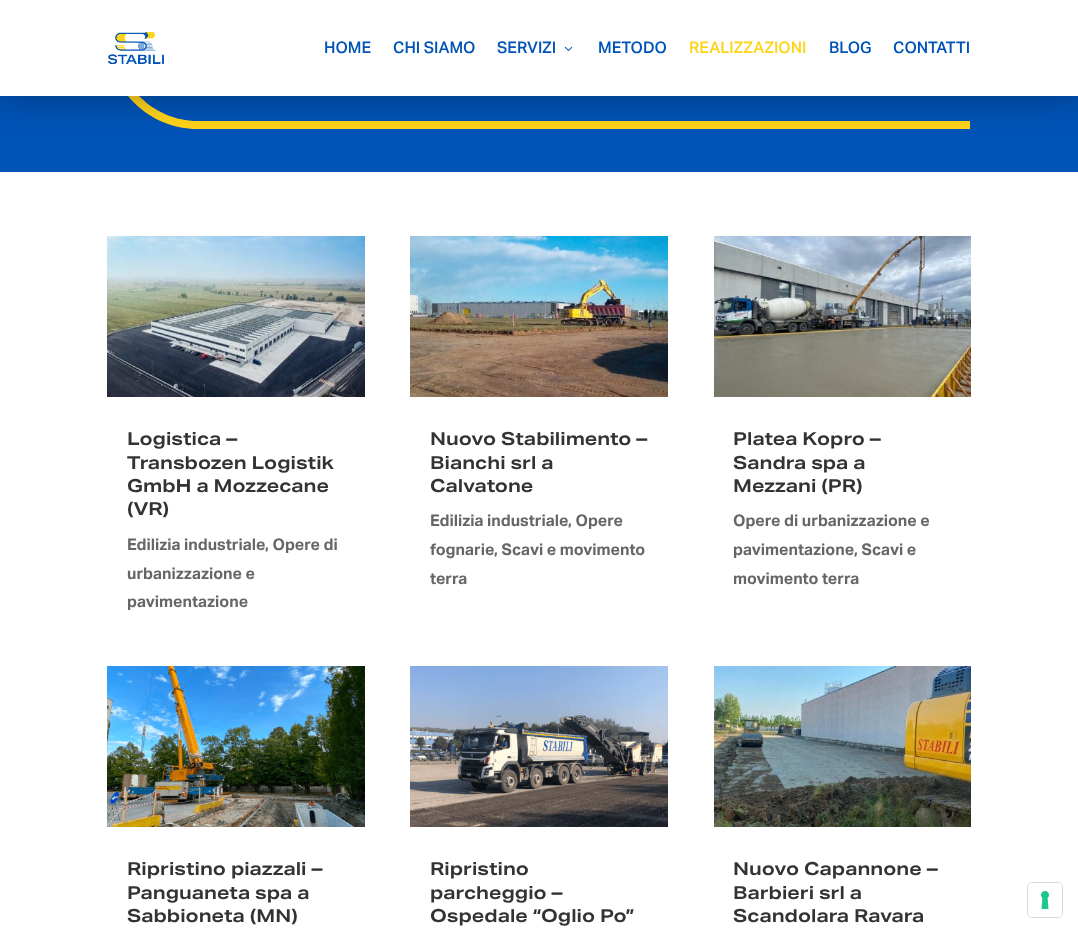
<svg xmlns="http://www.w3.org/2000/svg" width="1078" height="933">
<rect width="100%" height="100%" fill="#fff"/>
<rect y="96" width="1078" height="76" fill="#0053b7"/>
<path d="M108-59h862v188h-772c-50 0-90-40-90-90zm8 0h854v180h-772c-45 0-82-37-82-82z" fill="#ffd31a" fill-rule="evenodd"/>
<rect y="2" width="1078" height="96" fill="#0000004d" filter="blur(17.5px)"/>
<rect width="1078" height="96" fill="#fff"/>
<image x="108" y="32" width="56" height="32" href="media/1.png"/>
<text x="324" y="53" style="font-family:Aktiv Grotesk;font-size:16px;font-weight:500;fill:#0053b7">HOME</text>
<text x="393" y="53" style="font-family:Aktiv Grotesk;font-size:16px;font-weight:500;fill:#0053b7">CHI SIAMO</text>
<text x="497" y="53" style="font-family:Aktiv Grotesk;font-size:16px;font-weight:500;fill:#0053b7">SERVIZI</text>
<image x="564" y="46" width="9" height="5" href="media/2.png"/>
<text x="598" y="53" style="font-family:Aktiv Grotesk;font-size:16px;font-weight:500;fill:#0053b7">METODO</text>
<text x="689" y="53" style="font-family:Aktiv Grotesk;font-size:16px;font-weight:500;fill:#ffd31a">REALIZZAZIONI</text>
<text x="829" y="53" style="font-family:Aktiv Grotesk;font-size:16px;font-weight:500;fill:#0053b7">BLOG</text>
<text x="893" y="53" style="font-family:Aktiv Grotesk;font-size:16px;font-weight:500;fill:#0053b7">CONTATTI</text>
<image x="107" y="236" width="258" height="161" href="media/3.png"/>
<text x="127" y="445" style="font-family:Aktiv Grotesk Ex;font-size:18px;font-weight:bold;fill:#333">Logistica –</text>
<text x="127" y="469" style="font-family:Aktiv Grotesk Ex;font-size:18px;font-weight:bold;fill:#333">Transbozen Logistik</text>
<text x="127" y="492" style="font-family:Aktiv Grotesk Ex;font-size:18px;font-weight:bold;fill:#333">GmbH a Mozzecane</text>
<text x="127" y="515" style="font-family:Aktiv Grotesk Ex;font-size:18px;font-weight:bold;fill:#333">(VR)</text>
<text x="127" y="550" style="font-family:Aktiv Grotesk;font-size:16px;font-weight:bold;fill:#666">Edilizia industriale</text>
<text x="265" y="550" style="font-family:Aktiv Grotesk;font-size:16px;font-weight:bold;fill:#666">, Opere di</text>
<text x="127" y="579" style="font-family:Aktiv Grotesk;font-size:16px;font-weight:bold;fill:#666">urbanizzazione e</text>
<text x="127" y="607" style="font-family:Aktiv Grotesk;font-size:16px;font-weight:bold;fill:#666">pavimentazione</text>
<image x="107" y="666" width="258" height="161" href="media/4.png"/>
<text x="127" y="875" style="font-family:Aktiv Grotesk Ex;font-size:18px;font-weight:bold;fill:#333">Ripristino piazzali –</text>
<text x="127" y="899" style="font-family:Aktiv Grotesk Ex;font-size:18px;font-weight:bold;fill:#333">Panguaneta spa a</text>
<text x="127" y="922" style="font-family:Aktiv Grotesk Ex;font-size:18px;font-weight:bold;fill:#333">Sabbioneta (MN)</text>
<image x="410" y="236" width="258" height="161" href="media/5.png"/>
<text x="430" y="445" style="font-family:Aktiv Grotesk Ex;font-size:18px;font-weight:bold;fill:#333">Nuovo Stabilimento –</text>
<text x="430" y="469" style="font-family:Aktiv Grotesk Ex;font-size:18px;font-weight:bold;fill:#333">Bianchi srl a</text>
<text x="430" y="492" style="font-family:Aktiv Grotesk Ex;font-size:18px;font-weight:bold;fill:#333">Calvatone</text>
<text x="430" y="526" style="font-family:Aktiv Grotesk;font-size:16px;font-weight:bold;fill:#666">Edilizia industriale</text>
<text x="568" y="526" style="font-family:Aktiv Grotesk;font-size:16px;font-weight:bold;fill:#666">, Opere</text>
<text x="430" y="555" style="font-family:Aktiv Grotesk;font-size:16px;font-weight:bold;fill:#666">fognarie</text>
<text x="494" y="555" style="font-family:Aktiv Grotesk;font-size:16px;font-weight:bold;fill:#666">, Scavi e movimento</text>
<text x="430" y="584" style="font-family:Aktiv Grotesk;font-size:16px;font-weight:bold;fill:#666">terra</text>
<image x="410" y="666" width="258" height="161" href="media/6.png"/>
<text x="430" y="875" style="font-family:Aktiv Grotesk Ex;font-size:18px;font-weight:bold;fill:#333">Ripristino</text>
<text x="430" y="899" style="font-family:Aktiv Grotesk Ex;font-size:18px;font-weight:bold;fill:#333">parcheggio –</text>
<text x="430" y="922" style="font-family:Aktiv Grotesk Ex;font-size:18px;font-weight:bold;fill:#333">Ospedale “Oglio Po”</text>
<image x="714" y="236" width="257" height="161" href="media/7.png"/>
<text x="733" y="445" style="font-family:Aktiv Grotesk Ex;font-size:18px;font-weight:bold;fill:#333">Platea Kopro –</text>
<text x="733" y="469" style="font-family:Aktiv Grotesk Ex;font-size:18px;font-weight:bold;fill:#333">Sandra spa a</text>
<text x="733" y="492" style="font-family:Aktiv Grotesk Ex;font-size:18px;font-weight:bold;fill:#333">Mezzani (PR)</text>
<text x="733" y="526" style="font-family:Aktiv Grotesk;font-size:16px;font-weight:bold;fill:#666">Opere di urbanizzazione e</text>
<text x="733" y="555" style="font-family:Aktiv Grotesk;font-size:16px;font-weight:bold;fill:#666">pavimentazione</text>
<text x="854" y="555" style="font-family:Aktiv Grotesk;font-size:16px;font-weight:bold;fill:#666">, Scavi e</text>
<text x="733" y="584" style="font-family:Aktiv Grotesk;font-size:16px;font-weight:bold;fill:#666">movimento terra</text>
<image x="714" y="666" width="257" height="161" href="media/8.png"/>
<text x="733" y="875" style="font-family:Aktiv Grotesk Ex;font-size:18px;font-weight:bold;fill:#333">Nuovo Capannone –</text>
<text x="733" y="899" style="font-family:Aktiv Grotesk Ex;font-size:18px;font-weight:bold;fill:#333">Barbieri srl a</text>
<text x="733" y="922" style="font-family:Aktiv Grotesk Ex;font-size:18px;font-weight:bold;fill:#333">Scandolara Ravara</text>
<rect x="1027.5" y="882.5" width="35" height="35" rx="4.5" fill="none" stroke="#d9d9d9"/>
<rect x="1028" y="883" width="34" height="34" rx="4" fill="#fff"/>
<image x="1041" y="891" width="8" height="18" href="media/9.png"/>
</svg>
